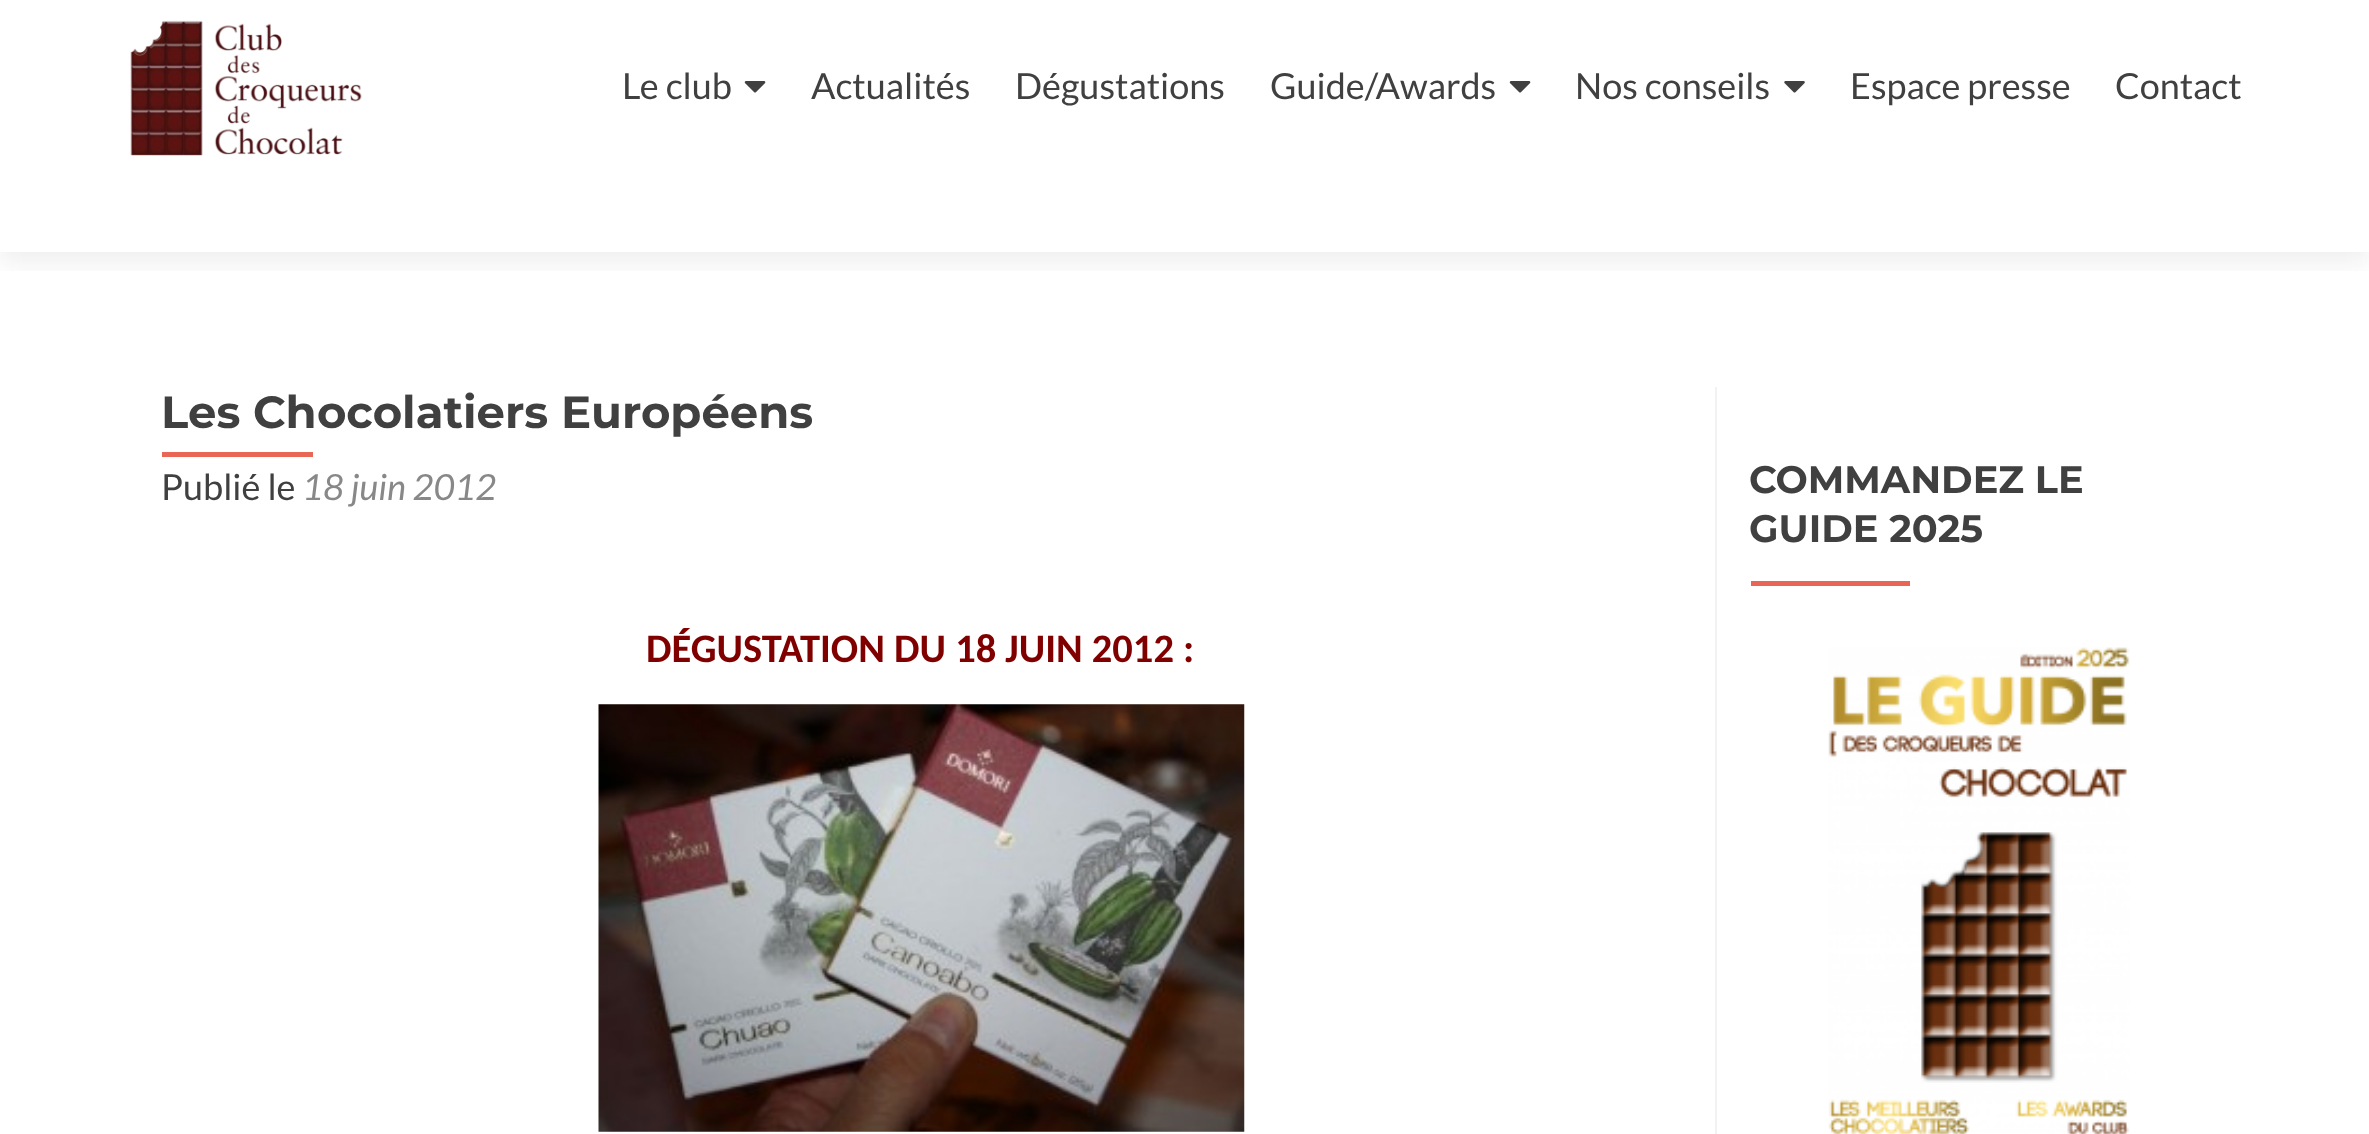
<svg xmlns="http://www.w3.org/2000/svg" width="2369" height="1134">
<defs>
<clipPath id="clip1"><rect x="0" y="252" width="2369" height="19"/></clipPath>
</defs>
<rect width="100%" height="100%" fill="#fff"/>
<g clip-path="url(#clip1)">
<rect y="11" width="2369" height="252" fill="#32323214" filter="blur(12.5px)"/>
</g>
<image x="130" y="20" width="232" height="136" href="media/1.png"/>
<text x="622" y="99" style="font-family:Lato;font-size:36px;fill:#404040">Le club</text>
<image x="744" y="81" width="22" height="12" href="media/2.png"/>
<text x="811" y="99" style="font-family:Lato;font-size:36px;fill:#404040">Actualités</text>
<text x="1015" y="99" style="font-family:Lato;font-size:36px;fill:#404040">Dégustations</text>
<text x="1270" y="99" style="font-family:Lato;font-size:36px;fill:#404040">Guide/Awards</text>
<image x="1509" y="81" width="22" height="12" href="media/2.png"/>
<text x="1575" y="99" style="font-family:Lato;font-size:36px;fill:#404040">Nos conseils</text>
<image x="1784" y="81" width="21" height="12" href="media/3.png"/>
<text x="1850" y="99" style="font-family:Lato;font-size:36px;fill:#404040">Espace presse</text>
<text x="2115" y="99" style="font-family:Lato;font-size:36px;fill:#404040">Contact</text>
<text x="161" y="428" style="font-family:Montserrat;font-size:45px;font-weight:bold;fill:#404040">Les Chocolatiers Européens</text>
<rect x="162" y="452" width="151" height="5" fill="#e96656"/>
<text x="161" y="500" style="font-family:Lato;font-size:36px;fill:#404040">Publié le</text>
<text x="302" y="500" style="font-family:Lato;font-size:36px;font-style:italic;fill:#888">18 juin 2012</text>
<text x="646" y="662" style="font-family:Carlito;font-size:40.5px;font-weight:bold;fill:#800000">DÉGUSTATION DU 18 JUIN 2012 :</text>
<image x="598" y="704" width="647" height="428" href="media/4.png"/>
<rect x="1715" y="387" width="2" height="747" fill="#f2f2f2"/>
<text x="1749" y="493" style="font-family:Montserrat;font-size:38.25px;font-weight:bold;fill:#404040">COMMANDEZ LE</text>
<text x="1749" y="542" style="font-family:Montserrat;font-size:38.25px;font-weight:bold;fill:#404040">GUIDE 2025</text>
<rect x="1751" y="581" width="159" height="5" fill="#e96656"/>
<image x="1828" y="647" width="302" height="487" href="media/5.png"/>
</svg>
